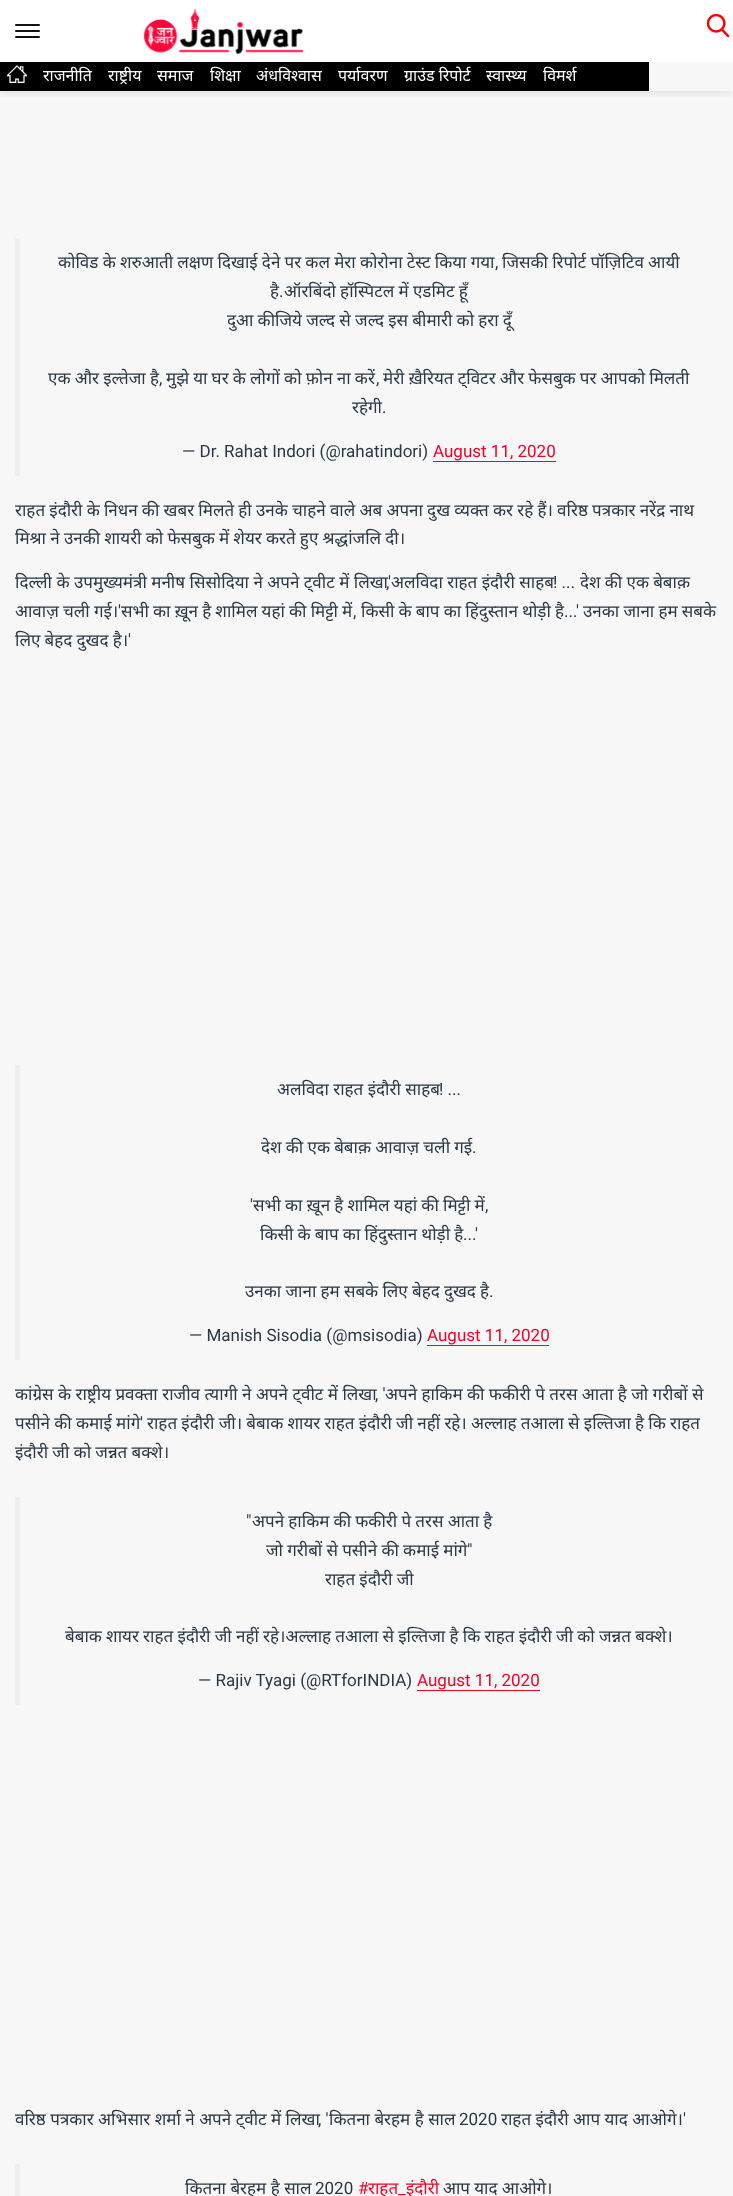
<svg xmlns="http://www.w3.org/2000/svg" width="733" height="2196">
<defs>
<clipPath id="clip1"><rect x="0" y="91" width="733" height="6"/></clipPath>
<clipPath id="clip2"><rect x="15" width="703" height="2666"/></clipPath>
</defs>
<rect width="100%" height="100%" fill="#f7f7f7"/>
<g clip-path="url(#clip1)">
<rect y="2" width="733" height="91" fill="#0000001a" filter="blur(5px)"/>
</g>
<rect width="733" height="62" fill="#fff"/>
<rect x="15" y="24" width="25" height="2" rx="1" fill="#121212"/>
<rect x="15" y="30" width="25" height="2" rx="1" fill="#121212"/>
<rect x="15" y="36" width="25" height="2" rx="1" fill="#121212"/>
<image x="143" y="9" width="160" height="45" href="media/1.png"/>
<image x="706" y="13" width="24" height="25" href="media/2.png"/>
<rect y="62" width="649" height="29" fill="#000"/>
<image x="7" y="65" width="20" height="19" href="media/3.png"/>
<text x="43" y="81" style="font-family:Noto Sans;font-size:16px;fill:#fff">राजनीति</text>
<text x="108" y="81" style="font-family:Noto Sans;font-size:16px;fill:#fff">राष्ट्रीय</text>
<text x="157" y="81" style="font-family:Noto Sans;font-size:16px;fill:#fff">समाज</text>
<text x="210" y="81" style="font-family:Noto Sans;font-size:16px;fill:#fff">शिक्षा</text>
<text x="256" y="81" style="font-family:Noto Sans;font-size:16px;fill:#fff">अंधविश्वास</text>
<text x="338" y="81" style="font-family:Noto Sans;font-size:16px;fill:#fff">पर्यावरण</text>
<text x="404" y="81" style="font-family:Noto Sans;font-size:16px;fill:#fff">ग्राउंड रिपोर्ट</text>
<text x="486" y="81" style="font-family:Noto Sans;font-size:16px;fill:#fff">स्वास्थ्य</text>
<text x="543" y="81" style="font-family:Noto Sans;font-size:16px;fill:#fff">विमर्श</text>
<rect x="15" y="238" width="5" height="238" fill="#eee"/>
<text x="58" y="268" word-spacing="-0.2" style="font-family:Noto Sans;font-size:17px;fill:#2a3744">कोविड के शरुआती लक्षण दिखाई देने पर कल मेरा कोरोना टेस्ट किया गया</text>
<text x="495" y="268" style="font-family:Roboto;font-size:17px;fill:#2a3744">,</text>
<text x="502" y="268" word-spacing="-0.2" style="font-family:Noto Sans;font-size:17px;fill:#2a3744">जिसकी रिपोर्ट पॉज़िटिव आयी</text>
<text x="270" y="297" style="font-family:Noto Sans;font-size:17px;fill:#2a3744">है</text>
<text x="279" y="297" style="font-family:Roboto;font-size:17px;fill:#2a3744">.</text>
<text x="284" y="297" word-spacing="-0.2" style="font-family:Noto Sans;font-size:17px;fill:#2a3744">ऑरबिंदो हॉस्पिटल में एडमिट हूँ</text>
<text x="227" y="326" word-spacing="-0.2" style="font-family:Noto Sans;font-size:17px;fill:#2a3744">दुआ कीजिये जल्द से जल्द इस बीमारी को हरा दूँ</text>
<text x="48" y="384" word-spacing="-0.25" style="font-family:Noto Sans;font-size:17px;fill:#2a3744">एक और इल्तेजा है</text>
<text x="159" y="384" style="font-family:Roboto;font-size:17px;fill:#2a3744">,</text>
<text x="166" y="384" word-spacing="-0.25" style="font-family:Noto Sans;font-size:17px;fill:#2a3744">मुझे या घर के लोगों को फ़ोन ना करें</text>
<text x="376" y="384" style="font-family:Roboto;font-size:17px;fill:#2a3744">,</text>
<text x="383" y="384" word-spacing="-0.25" style="font-family:Noto Sans;font-size:17px;fill:#2a3744">मेरी ख़ैरियत ट्विटर और फेसबुक पर आपको मिलती</text>
<text x="352" y="413" style="font-family:Noto Sans;font-size:17px;fill:#2a3744">रहेगी</text>
<text x="382" y="413" style="font-family:Roboto;font-size:17px;fill:#2a3744">.</text>
<text x="182" y="457" style="font-family:Roboto;font-size:17px;fill:#2a3744">— Dr. Rahat Indori (@rahatindori)</text>
<text x="433" y="457" style="font-family:Roboto;font-size:17px;fill:#f50027">August 11, 2020</text>
<rect x="433" y="461" width="123" height="1" fill="#f50027"/>
<text x="15" y="516" word-spacing="-0.2" style="font-family:Noto Sans;font-size:17px;fill:#2a3744">राहत इंदौरी के निधन की खबर मिलते ही उनके चाहने वाले अब अपना दुख व्यक्त कर रहे हैं। वरिष्ठ पत्रकार नरेंद्र नाथ</text>
<text x="15" y="544" word-spacing="-0.2" style="font-family:Noto Sans;font-size:17px;fill:#2a3744">मिश्रा ने उनकी शायरी को फेसबुक में शेयर करते हुए श्रद्धांजलि दी।</text>
<text x="15" y="588" style="font-family:Noto Sans;font-size:17px;fill:#2a3744">दिल्ली के उपमुख्यमंत्री मनीष सिसोदिया ने अपने ट्वीट में लिखा</text>
<text x="386" y="588" style="font-family:Roboto;font-size:17px;fill:#2a3744">,'</text>
<text x="391" y="588" style="font-family:Noto Sans;font-size:17px;fill:#2a3744">अलविदा राहत इंदौरी साहब</text>
<text x="553" y="588" style="font-family:Roboto;font-size:17px;fill:#2a3744">! ...</text>
<text x="580" y="588" word-spacing="-0.2" style="font-family:Noto Sans;font-size:17px;fill:#2a3744">देश की एक बेबाक़</text>
<text x="15" y="617" word-spacing="-0.25" style="font-family:Noto Sans;font-size:17px;fill:#2a3744">आवाज़ चली गई।</text>
<text x="118" y="617" style="font-family:Roboto;font-size:17px;fill:#2a3744">'</text>
<text x="121" y="617" word-spacing="-0.25" style="font-family:Noto Sans;font-size:17px;fill:#2a3744">सभी का ख़ून है शामिल यहां की मिट्टी में</text>
<text x="353" y="617" style="font-family:Roboto;font-size:17px;fill:#2a3744">,</text>
<text x="361" y="617" word-spacing="-0.25" style="font-family:Noto Sans;font-size:17px;fill:#2a3744">किसी के बाप का हिंदुस्तान थोड़ी है</text>
<text x="564" y="617" style="font-family:Roboto;font-size:17px;fill:#2a3744">...'</text>
<text x="583" y="617" word-spacing="-0.25" style="font-family:Noto Sans;font-size:17px;fill:#2a3744">उनका जाना हम सबके</text>
<text x="15" y="646" word-spacing="-0.2" style="font-family:Noto Sans;font-size:17px;fill:#2a3744">लिए बेहद दुखद है।</text>
<text x="128" y="646" style="font-family:Roboto;font-size:17px;fill:#2a3744">'</text>
<rect x="15" y="1065" width="5" height="295" fill="#eee"/>
<text x="277" y="1095" style="font-family:Noto Sans;font-size:17px;fill:#2a3744">अलविदा राहत इंदौरी साहब</text>
<text x="439" y="1095" style="font-family:Roboto;font-size:17px;fill:#2a3744">! ...</text>
<text x="261" y="1153" word-spacing="-0.2" style="font-family:Noto Sans;font-size:17px;fill:#2a3744">देश की एक बेबाक़ आवाज़ चली गई</text>
<text x="472" y="1153" style="font-family:Roboto;font-size:17px;fill:#2a3744">.</text>
<text x="250" y="1211" style="font-family:Roboto;font-size:17px;fill:#2a3744">'</text>
<text x="253" y="1211" word-spacing="-0.2" style="font-family:Noto Sans;font-size:17px;fill:#2a3744">सभी का ख़ून है शामिल यहां की मिट्टी में</text>
<text x="485" y="1211" style="font-family:Roboto;font-size:17px;fill:#2a3744">,</text>
<text x="260" y="1240" word-spacing="-0.2" style="font-family:Noto Sans;font-size:17px;fill:#2a3744">किसी के बाप का हिंदुस्तान थोड़ी है</text>
<text x="463" y="1240" style="font-family:Roboto;font-size:17px;fill:#2a3744">...'</text>
<text x="245" y="1297" word-spacing="-0.2" style="font-family:Noto Sans;font-size:17px;fill:#2a3744">उनका जाना हम सबके लिए बेहद दुखद है</text>
<text x="489" y="1297" style="font-family:Roboto;font-size:17px;fill:#2a3744">.</text>
<text x="189" y="1341" style="font-family:Roboto;font-size:17px;fill:#2a3744">— Manish Sisodia (@msisodia)</text>
<text x="427" y="1341" style="font-family:Roboto;font-size:17px;fill:#f50027">August 11, 2020</text>
<rect x="427" y="1345" width="122" height="1" fill="#f50027"/>
<g clip-path="url(#clip2)">
<text x="15" y="1400" style="font-family:Noto Sans;font-size:17px;fill:#2a3744">कांग्रेस</text>
</g>
<text x="58" y="1400" style="font-family:Noto Sans;font-size:17px;fill:#2a3744">के राष्ट्रीय प्रवक्ता राजीव त्यागी ने अपने ट्वीट में लिखा</text>
<text x="375" y="1400" style="font-family:Roboto;font-size:17px;fill:#2a3744">, '</text>
<text x="385" y="1400" style="font-family:Noto Sans;font-size:17px;fill:#2a3744">अपने हाकिम की फकीरी पे तरस आता है जो गरीबों से</text>
<text x="15" y="1429" word-spacing="-0.2" style="font-family:Noto Sans;font-size:17px;fill:#2a3744">पसीने की कमाई मांगे</text>
<text x="140" y="1429" style="font-family:Roboto;font-size:17px;fill:#2a3744">'</text>
<text x="147" y="1429" word-spacing="-0.2" style="font-family:Noto Sans;font-size:17px;fill:#2a3744">राहत इंदौरी जी। बेबाक शायर राहत इंदौरी जी नहीं रहे। अल्लाह तआला से इल्तिजा है कि राहत</text>
<g clip-path="url(#clip2)">
<text x="15" y="1458" word-spacing="-0.2" style="font-family:Noto Sans;font-size:17px;fill:#2a3744">इंदौरी जी को जन्नत बक्शे।</text>
</g>
<rect x="15" y="1497" width="5" height="208" fill="#eee"/>
<text x="246" y="1527" style="font-family:Roboto;font-size:17px;fill:#2a3744">"</text>
<text x="252" y="1527" word-spacing="-0.2" style="font-family:Noto Sans;font-size:17px;fill:#2a3744">अपने हाकिम की फकीरी पे तरस आता है</text>
<text x="266" y="1556" word-spacing="-0.2" style="font-family:Noto Sans;font-size:17px;fill:#2a3744">जो गरीबों से पसीने की कमाई मांगे</text>
<text x="467" y="1556" style="font-family:Roboto;font-size:17px;fill:#2a3744">"</text>
<text x="325" y="1585" word-spacing="-0.2" style="font-family:Noto Sans;font-size:17px;fill:#2a3744">राहत इंदौरी जी</text>
<text x="65" y="1642" word-spacing="-0.2" style="font-family:Noto Sans;font-size:17px;fill:#2a3744">बेबाक शायर राहत इंदौरी जी नहीं रहे।अल्लाह तआला से इल्तिजा है कि राहत इंदौरी जी को जन्नत बक्शे।</text>
<text x="198" y="1686" style="font-family:Roboto;font-size:17px;fill:#2a3744">— Rajiv Tyagi (@RTforINDIA)</text>
<text x="417" y="1686" style="font-family:Roboto;font-size:17px;fill:#f50027">August 11, 2020</text>
<rect x="417" y="1690" width="123" height="1" fill="#f50027"/>
<text x="15" y="2125" style="font-family:Noto Sans;font-size:17px;fill:#2a3744">वरिष्ठ पत्रकार अभिसार शर्मा ने अपने ट्वीट में लिखा</text>
<text x="318" y="2125" style="font-family:Roboto;font-size:17px;fill:#2a3744">, '</text>
<text x="329" y="2125" style="font-family:Noto Sans;font-size:17px;fill:#2a3744">कितना बेरहम है साल</text>
<text x="459" y="2125" style="font-family:Roboto;font-size:17px;fill:#2a3744">2020</text>
<text x="501" y="2125" style="font-family:Noto Sans;font-size:17px;fill:#2a3744">राहत इंदौरी आप याद आओगे।</text>
<text x="683" y="2125" style="font-family:Roboto;font-size:17px;fill:#2a3744">'</text>
<rect x="15" y="2164" width="5" height="32" fill="#eee"/>
<text x="185" y="2194" style="font-family:Noto Sans;font-size:17px;fill:#2a3744">कितना बेरहम है साल</text>
<text x="315" y="2194" style="font-family:Roboto;font-size:17px;fill:#2a3744">2020</text>
<text x="358" y="2194" style="font-family:Roboto;font-size:17px;fill:#f50027">#</text>
<text x="368" y="2194" style="font-family:Noto Sans;font-size:17px;fill:#f50027">राहत</text>
<text x="398" y="2194" style="font-family:Roboto;font-size:17px;fill:#f50027">_</text>
<text x="406" y="2194" style="font-family:Noto Sans;font-size:17px;fill:#f50027">इंदौरी</text>
<text x="443" y="2194" word-spacing="-0.2" style="font-family:Noto Sans;font-size:17px;fill:#2a3744">आप याद आओगे।</text>
</svg>
